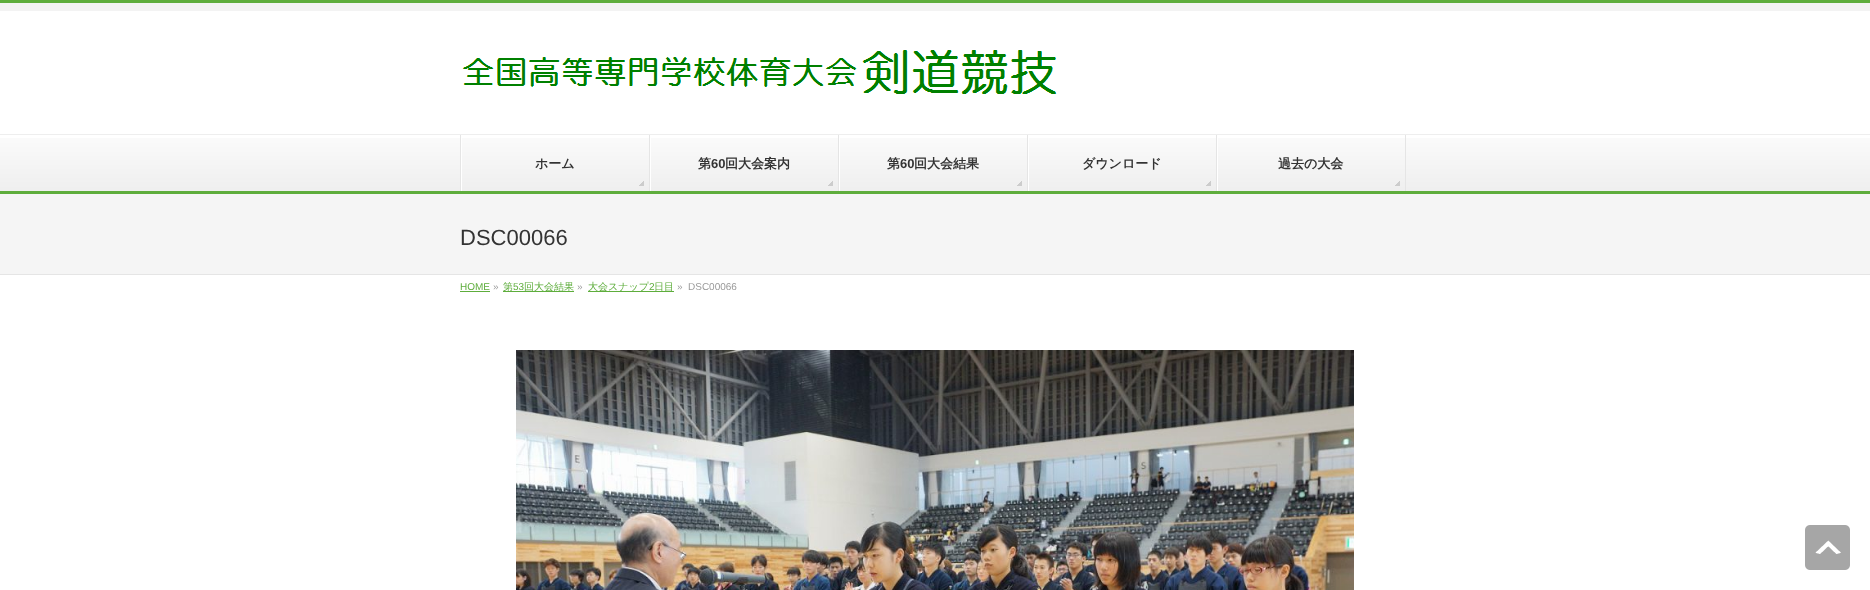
<svg xmlns="http://www.w3.org/2000/svg" width="1870" height="590">
<rect width="100%" height="100%" fill="#fff"/>
<rect y="3" width="1870" height="8" fill="#f3f3f3"/>
<rect width="1870" height="3" fill="#5ead3c"/>
<image x="462" y="50" width="595" height="44" href="media/1.png"/>
<image x="0" y="138" width="1870" height="53" href="media/2.png"/>
<rect y="134" width="1870" height="1" fill="#eee"/>
<rect y="191" width="1870" height="3" fill="#5ead3c"/>
<rect x="460" y="135" width="1" height="56" fill="#e5e5e5"/>
<rect x="461" y="135" width="1" height="56" fill="#fff"/>
<image x="639" y="181" width="5" height="5" href="media/3.png"/>
<rect x="649" y="135" width="1" height="56" fill="#e5e5e5"/>
<text x="535" y="168" style="font-family:WenQuanYi Zen Hei;font-size:13px;font-weight:bold;fill:#333">ホーム</text>
<rect x="650" y="135" width="1" height="56" fill="#fff"/>
<image x="828" y="181" width="5" height="5" href="media/3.png"/>
<rect x="838" y="135" width="1" height="56" fill="#e5e5e5"/>
<text x="698" y="168" style="font-family:WenQuanYi Zen Hei;font-size:13px;font-weight:bold;fill:#333">第</text>
<text x="711" y="168" style="font-family:Liberation Sans;font-size:13px;font-weight:bold;fill:#333">60</text>
<text x="725" y="168" style="font-family:WenQuanYi Zen Hei;font-size:13px;font-weight:bold;fill:#333">回大会案内</text>
<rect x="839" y="135" width="1" height="56" fill="#fff"/>
<image x="1017" y="181" width="5" height="5" href="media/3.png"/>
<rect x="1027" y="135" width="1" height="56" fill="#e5e5e5"/>
<text x="887" y="168" style="font-family:WenQuanYi Zen Hei;font-size:13px;font-weight:bold;fill:#333">第</text>
<text x="900" y="168" style="font-family:Liberation Sans;font-size:13px;font-weight:bold;fill:#333">60</text>
<text x="914" y="168" style="font-family:WenQuanYi Zen Hei;font-size:13px;font-weight:bold;fill:#333">回大会結果</text>
<rect x="1028" y="135" width="1" height="56" fill="#fff"/>
<image x="1206" y="181" width="5" height="5" href="media/3.png"/>
<rect x="1216" y="135" width="1" height="56" fill="#e5e5e5"/>
<text x="1082" y="168" style="font-family:WenQuanYi Zen Hei;font-size:13px;font-weight:bold;fill:#333">ダウンロード</text>
<rect x="1217" y="135" width="1" height="56" fill="#fff"/>
<image x="1395" y="181" width="5" height="5" href="media/3.png"/>
<rect x="1405" y="135" width="1" height="56" fill="#e5e5e5"/>
<text x="1278" y="168" style="font-family:WenQuanYi Zen Hei;font-size:13px;font-weight:bold;fill:#333">過去の大会</text>
<rect y="194" width="1870" height="80" fill="#f5f5f5"/>
<rect y="274" width="1870" height="1" fill="#e5e5e5"/>
<text x="460" y="245" style="font-family:Liberation Sans;font-size:22px;fill:#333">DSC00066</text>
<text x="460" y="290" style="font-family:Liberation Sans;font-size:10px;fill:#5ead3c">HOME</text>
<rect x="460" y="291" width="30" height="1" fill="#5ead3c"/>
<text x="493" y="290" style="font-family:Liberation Sans;font-size:10px;fill:#999">»</text>
<rect x="503" y="291" width="71" height="1" fill="#5ead3c"/>
<text x="503" y="290" style="font-family:WenQuanYi Zen Hei;font-size:10px;font-weight:500;fill:#5ead3c">第</text>
<text x="513" y="290" style="font-family:Liberation Sans;font-size:10px;fill:#5ead3c">53</text>
<text x="524" y="290" style="font-family:WenQuanYi Zen Hei;font-size:10px;font-weight:500;fill:#5ead3c">回大会結果</text>
<text x="577" y="290" style="font-family:Liberation Sans;font-size:10px;fill:#999">»</text>
<rect x="588" y="291" width="86" height="1" fill="#5ead3c"/>
<text x="588" y="290" style="font-family:WenQuanYi Zen Hei;font-size:10px;font-weight:500;fill:#5ead3c">大会スナップ</text>
<text x="649" y="290" style="font-family:Liberation Sans;font-size:10px;fill:#5ead3c">2</text>
<text x="654" y="290" style="font-family:WenQuanYi Zen Hei;font-size:10px;font-weight:500;fill:#5ead3c">日目</text>
<text x="677" y="290" style="font-family:Liberation Sans;font-size:10px;fill:#999">»</text>
<text x="688" y="290" style="font-family:Liberation Sans;font-size:10px;fill:#999">DSC00066</text>
<image x="516" y="350" width="838" height="240" href="media/4.png"/>
<image x="1805" y="525" width="45" height="45" href="media/5.png"/>
</svg>
